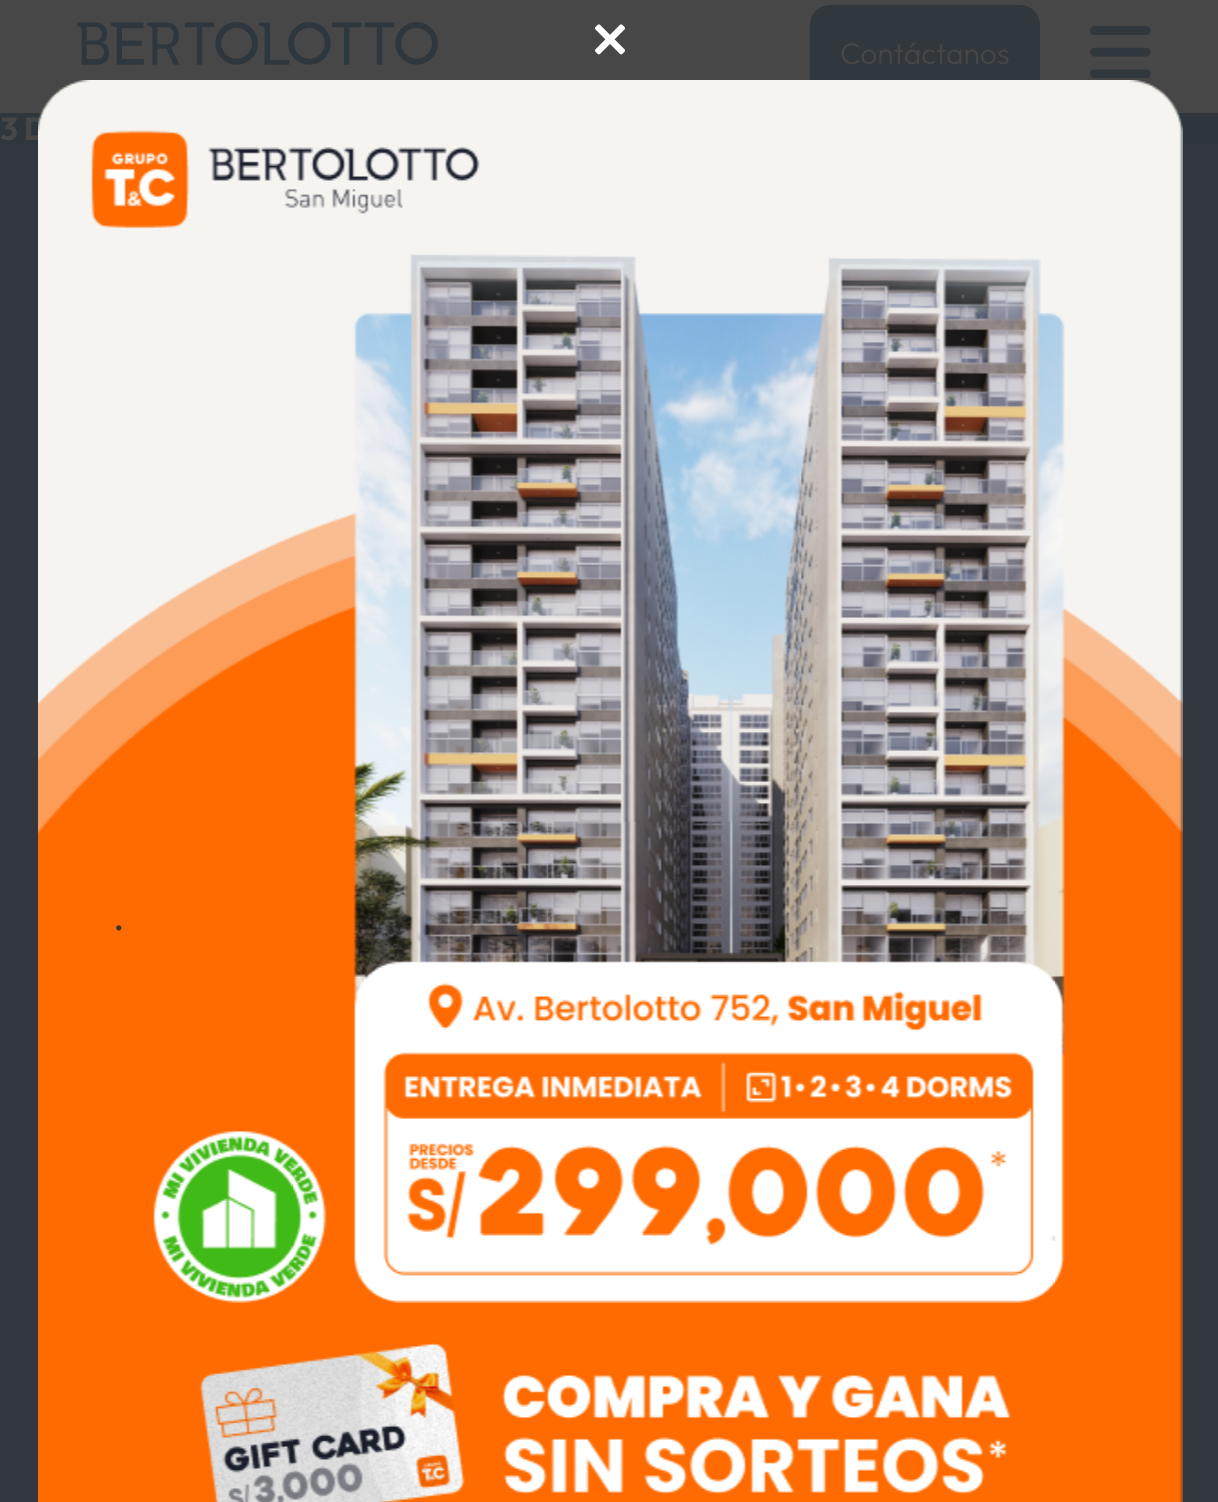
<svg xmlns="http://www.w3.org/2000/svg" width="1218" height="1502">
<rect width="100%" height="100%" fill="#474747"/>
<image x="77" y="22" width="361" height="43" href="media/1.png"/>
<rect x="810" y="5" width="230" height="100" rx="20" fill="#30373d"/>
<text x="840" y="64" style="font-family:Outfit;font-size:30px;font-weight:300;fill:#474747">Contáctanos</text>
<image x="1090" y="26" width="61" height="53" href="media/2.png"/>
<rect y="113" width="1218" height="32" fill="#2f373d"/>
<text x="0" y="140" style="font-family:Outfit;font-size:32px;font-weight:bold;fill:#474747">3 D</text>
<rect y="145" width="1218" height="1357" fill="#33373f"/>
<image x="38" y="80" width="1145" height="1422" href="media/3.png"/>
<image x="595" y="24" width="30" height="31" href="media/4.png"/>
<text x="113" y="930" style="font-family:Outfit;font-size:40px;letter-spacing:-1px;fill:#333">.</text>
</svg>
